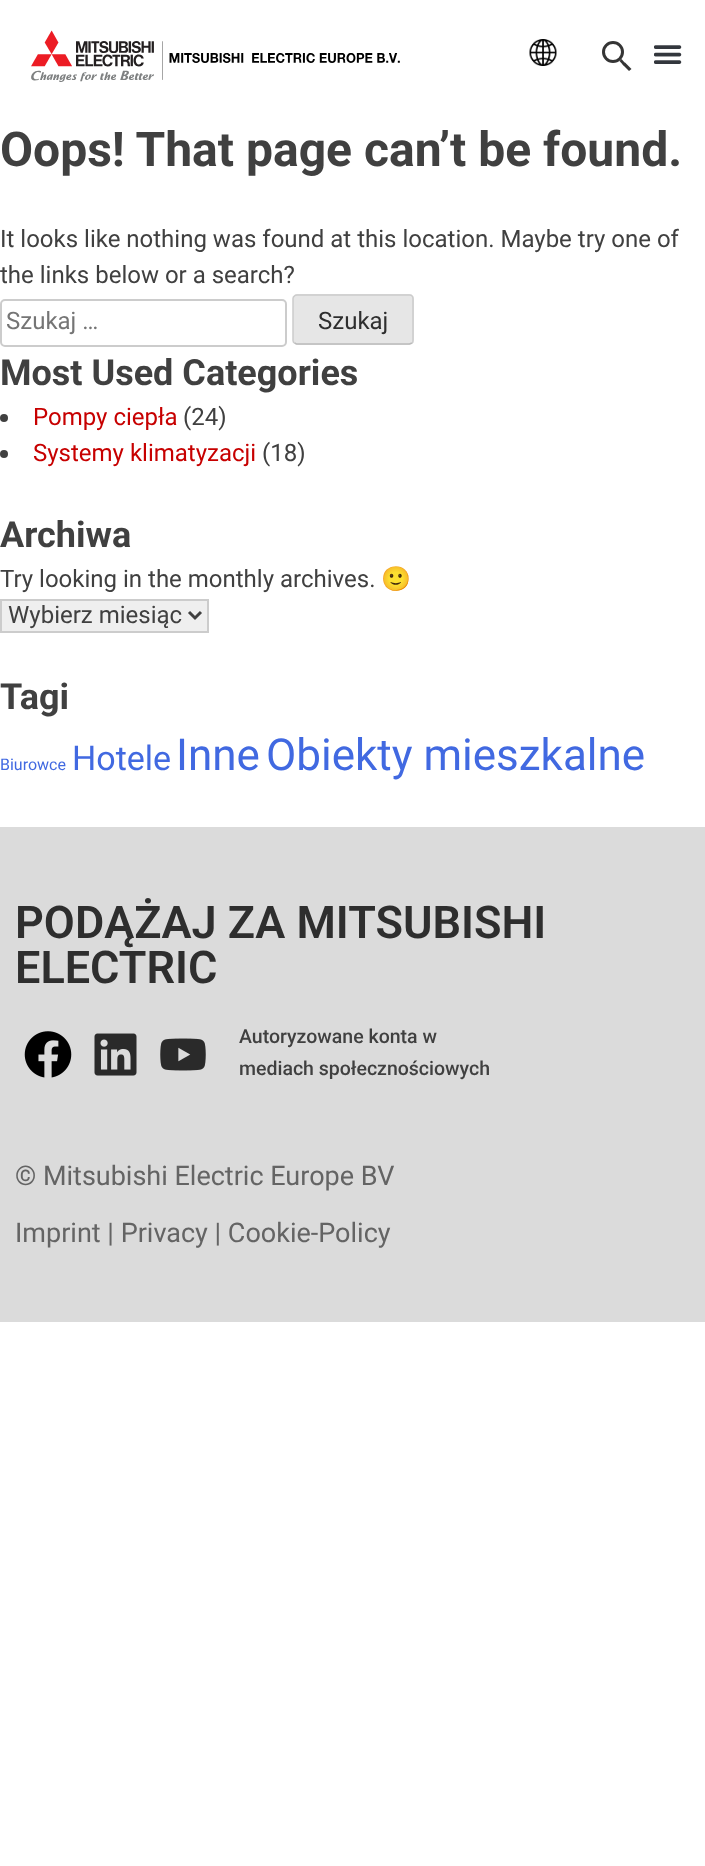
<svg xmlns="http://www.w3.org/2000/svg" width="705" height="1866">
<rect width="100%" height="100%" fill="#fff"/>
<image x="31" y="30" width="369" height="52" href="media/1.png"/>
<image x="529" y="39" width="28" height="27" href="media/2.png"/>
<circle cx="613" cy="52" r="9.5" fill="none" stroke="#353535" stroke-width="3"/>
<path d="M619.5 61l2-2l4 4.5l-2 2z" fill="#353535"/>
<path d="M622.5 64.5l2.5-2l6.5 6.5l-2.5 2z" fill="#353535"/>
<image x="654" y="45" width="28" height="19" href="media/3.png"/>
<text x="0" y="166" style="font-family:Roboto;font-size:48px;font-weight:bold;fill:#404040">Oops! That page can’t be found.</text>
<text x="0" y="247" style="font-family:Roboto;font-size:24px;fill:#404040">It looks like nothing was found at this location. Maybe try one of</text>
<text x="0" y="283" style="font-family:Roboto;font-size:24px;fill:#404040">the links below or a search?</text>
<rect x="1" y="300" width="285" height="46" rx="4" fill="none" stroke="#ccc" stroke-width="2"/>
<text x="6" y="329" style="font-family:Roboto;font-size:24px;fill:#757575">Szukaj …</text>
<rect x="293" y="294" width="121" height="51" rx="5" fill="#e6e6e6"/>
<path d="M412 343l-2.5 1h-113l-2-1" fill="none" stroke="#bbb" stroke-width="1.5"/>
<path d="M294.5 343c-1-.5-1.5-1.5-1.5-2.5v-42c0-1 .5-2 1.5-2.5c.5-1 1.5-1 2.5-1h112.5c1 0 2 0 2.5 1c1 .5 1 1.5 1 2.5v42c0 1 0 2-1 2.5" fill="none" stroke="#ccc" stroke-width="1.5"/>
<text x="318" y="329" style="font-family:Roboto;font-size:24px;fill:#2e2e2e">Szukaj</text>
<text x="0" y="385" style="font-family:Roboto;font-size:36px;font-weight:bold;fill:#404040">Most Used Categories</text>
<circle cx="4" cy="418" r="4" fill="#404040"/>
<text x="33" y="425" style="font-family:Roboto;font-size:24px;fill:#c70000">Pompy ciepła</text>
<text x="183" y="425" style="font-family:Roboto;font-size:24px;fill:#404040">(24)</text>
<circle cx="4" cy="454" r="4" fill="#404040"/>
<text x="33" y="461" style="font-family:Roboto;font-size:24px;fill:#c70000">Systemy klimatyzacji</text>
<text x="262" y="461" style="font-family:Roboto;font-size:24px;fill:#404040">(18)</text>
<text x="0" y="547" style="font-family:Roboto;font-size:36px;font-weight:bold;fill:#404040">Archiwa</text>
<text x="0" y="587" style="font-family:Roboto;font-size:24px;fill:#404040">Try looking in the monthly archives.</text>
<text x="381" y="587" style="font-family:Noto Color Emoji;font-size:24px;fill:#404040">🙂</text>
<rect x="1" y="600" width="207" height="32" fill="#efefef" stroke="#ccc" stroke-width="2"/>
<path d="M189 612l6 6l6-6" fill="none" stroke="#404040" stroke-width="3"/>
<text x="8" y="623" style="font-family:Roboto;font-size:24px;fill:#404040">Wybierz miesiąc</text>
<text x="0" y="709" style="font-family:Roboto;font-size:36px;font-weight:bold;fill:#404040">Tagi</text>
<text x="0" y="770" style="font-family:Roboto;font-size:16px;fill:#4169e1">Biurowce</text>
<text x="72" y="770" style="font-family:Roboto;font-size:34px;fill:#4169e1">Hotele</text>
<text x="176" y="770" style="font-family:Roboto;font-size:44px;fill:#4169e1">Inne</text>
<text x="266" y="770" style="font-family:Roboto;font-size:44px;fill:#4169e1">Obiekty mieszkalne</text>
<rect y="827" width="705" height="495" fill="#dbdbdb"/>
<text x="15" y="938" style="font-family:Roboto;font-size:45px;font-weight:600;fill:#2e2e2e">PODĄŻAJ ZA MITSUBISHI</text>
<text x="15" y="983" style="font-family:Roboto;font-size:45px;font-weight:600;fill:#2e2e2e">ELECTRIC</text>
<image x="24" y="1031" width="48" height="47" href="media/4.png"/>
<image x="94" y="1033" width="43" height="43" href="media/5.png"/>
<image x="160" y="1038" width="46" height="33" href="media/6.png"/>
<text x="239" y="1043" style="font-family:Roboto;font-size:19.5px;font-weight:500;fill:#404040">Autoryzowane konta w</text>
<text x="239" y="1075" style="font-family:Roboto;font-size:19.5px;font-weight:500;fill:#404040">mediach społecznościowych</text>
<text x="15" y="1185" style="font-family:Roboto;font-size:27px;fill:#646464">© Mitsubishi Electric Europe BV</text>
<text x="15" y="1242" style="font-family:Roboto;font-size:27px;fill:#646464">Imprint | Privacy | Cookie-Policy</text>
</svg>
